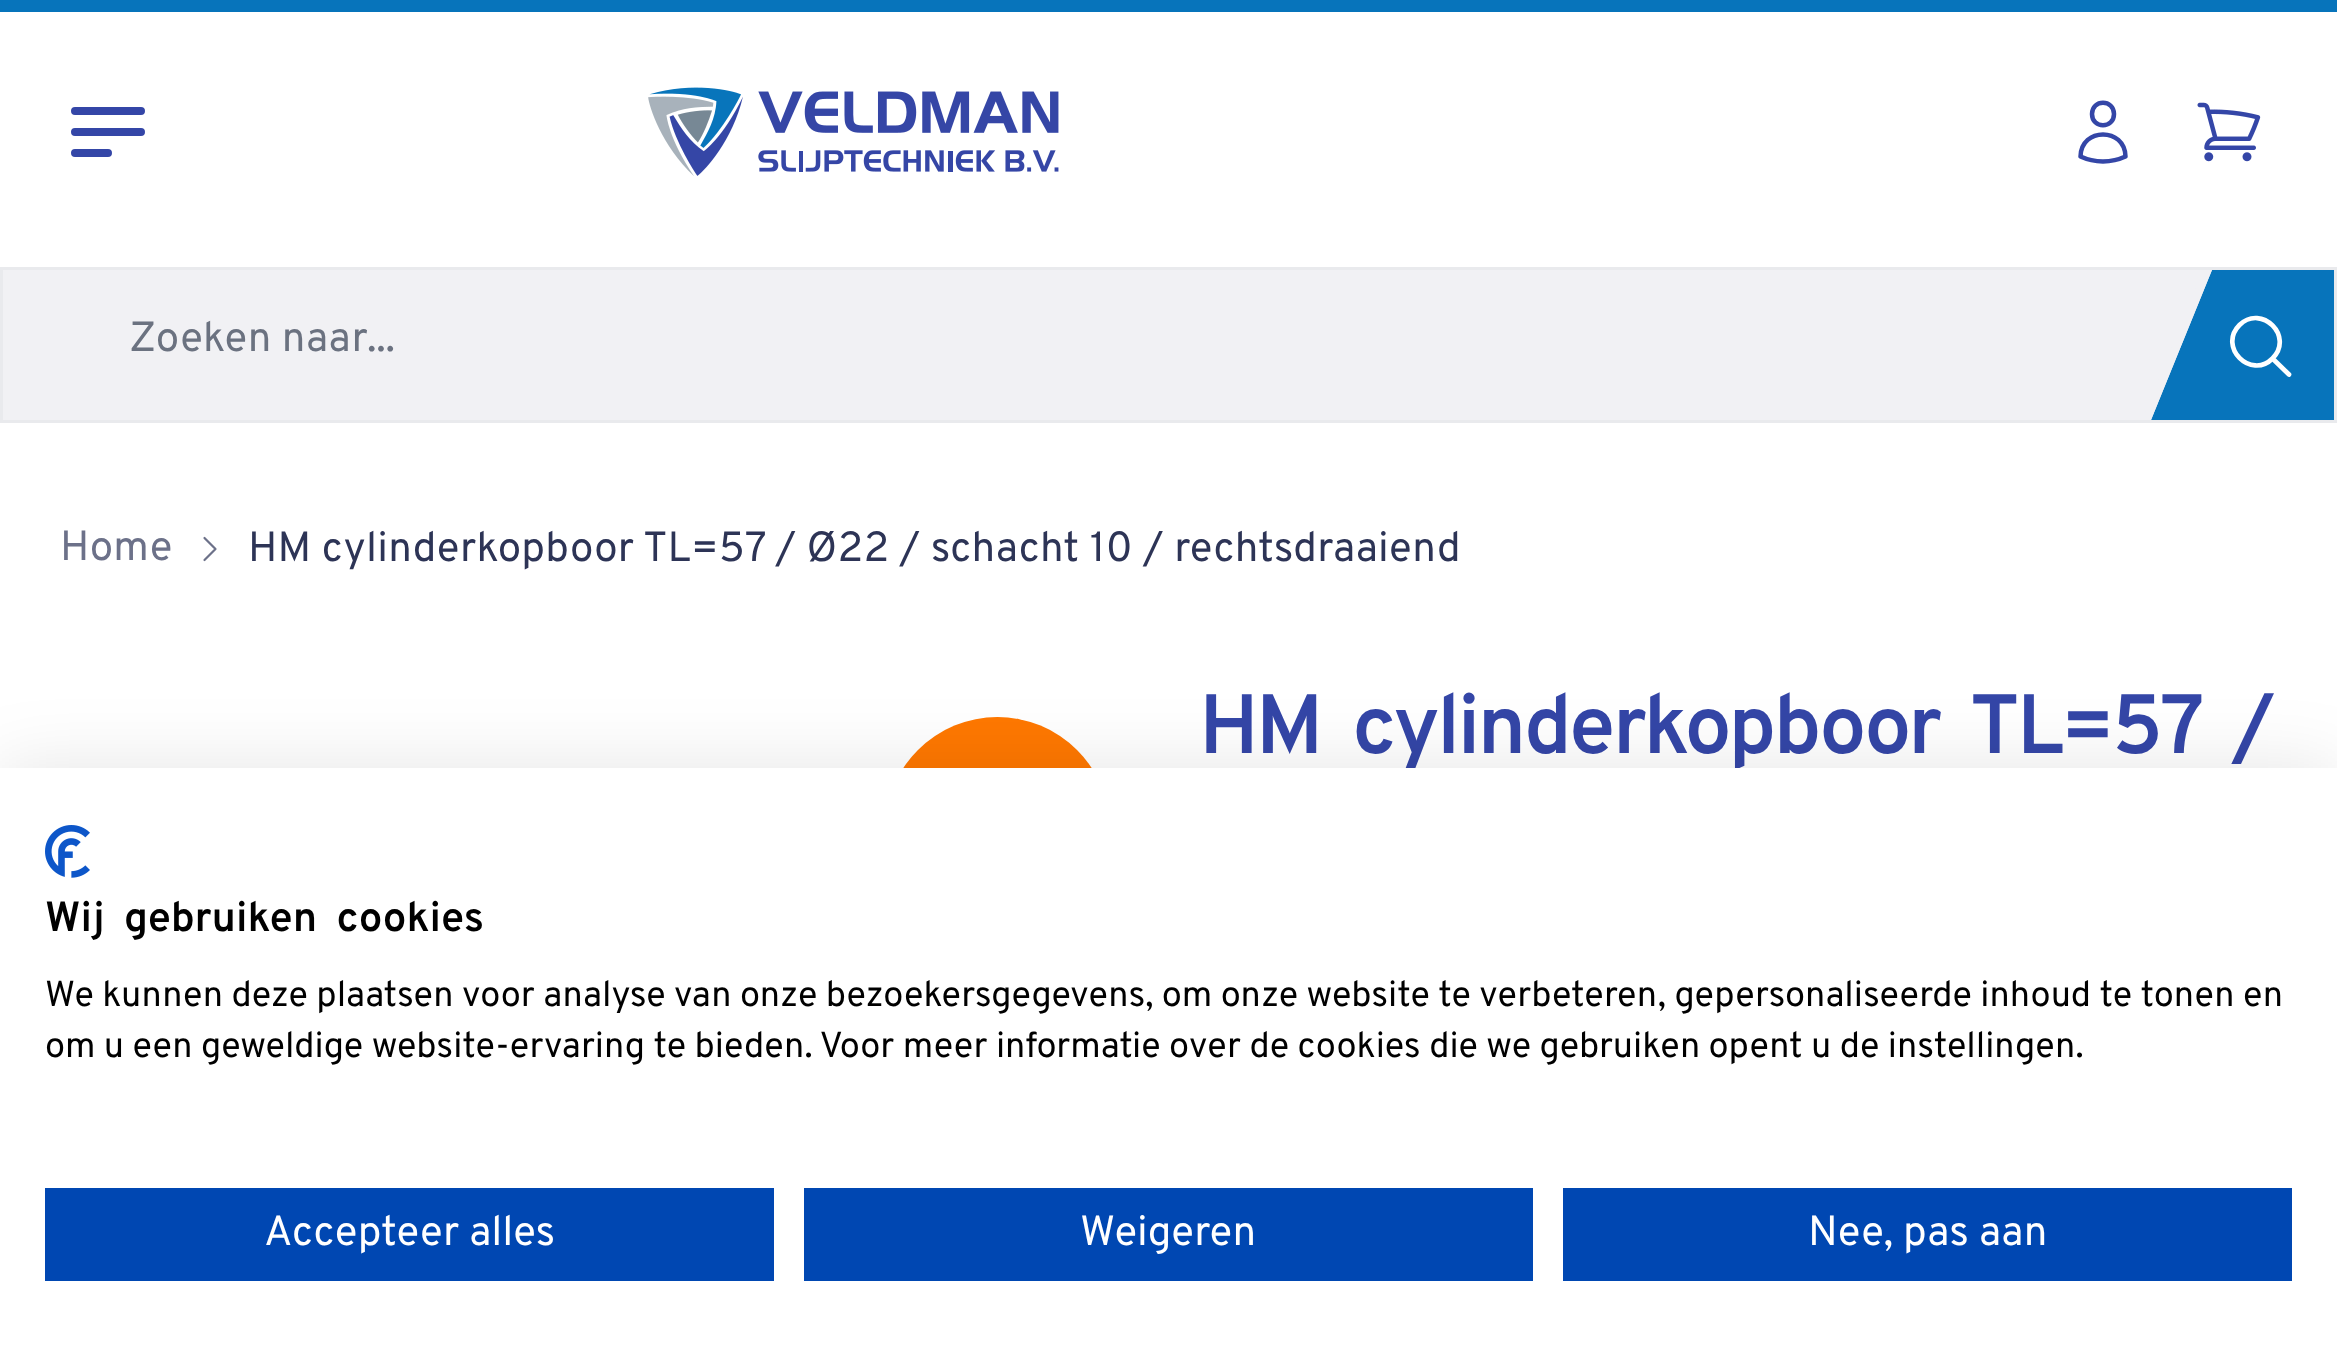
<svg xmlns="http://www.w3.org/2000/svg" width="2337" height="1360">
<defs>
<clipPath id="clip1"><rect x="2142" y="270" width="192" height="150"/></clipPath>
</defs>
<rect width="100%" height="100%" fill="#fff"/>
<rect width="2337" height="12" fill="#0774bb"/>
<path d="M75 111h66m-66 21h66m-66 21h33" fill="none" stroke="#3446a7" stroke-width="8" stroke-linecap="round" stroke-linejoin="round"/>
<image x="648" y="87" width="411" height="89" href="media/1.png"/>
<path d="M2114 114c0 15-22 15-22 0c0-15 22-15 22 0zm-33.5 42.5c.5-29.5 44.5-29.5 45 0c-14 6.5-31 6.5-45 0z" fill="none" stroke="#3446a7" stroke-width="4.5" stroke-linecap="round" stroke-linejoin="round"/>
<image x="2197" y="102" width="64" height="60" href="media/2.png"/>
<rect x="3" y="270" width="2209" height="150" fill="#f1f1f4"/>
<rect x="1.5" y="268.5" width="2334" height="153" fill="none" stroke="#e9eaed" stroke-width="3"/>
<text x="129" y="351" style="font-family:Overpass;font-size:42px;letter-spacing:0.3px;fill:#6b7280">Zoeken naar...</text>
<g clip-path="url(#clip1)">
<path d="M2212 270h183l-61 150h-183z" fill="#0774bb"/>
</g>
<path d="M2203 270h9l-61 150h-9z" fill="#f1f1f4"/>
<path d="M2289 374.5l-16.5-16m0 0c22-22-11-55-33-33.5c-22 22 11.5 55 33 33.5z" fill="none" stroke="#fff" stroke-width="4.7" stroke-linecap="round" stroke-linejoin="round"/>
<text x="60" y="560" style="font-family:Overpass;font-size:42px;letter-spacing:0.3px;fill:#6c7189">Home</text>
<path d="M204.5 538l11 11l-11 11" fill="none" stroke="#6c7189" stroke-width="2.2" stroke-linecap="round" stroke-linejoin="round"/>
<text x="248" y="561" style="font-family:Overpass;font-size:42px;letter-spacing:0.3px;fill:#2d3456">HM cylinderkopboor TL=57 / Ø22 / schacht 10 / rechtsdraaiend</text>
<circle cx="997.5" cy="829.5" r="112.5" fill="#ff7800"/>
<text x="1199" y="753" word-spacing="14" style="font-family:Overpass;font-size:84px;font-weight:600;letter-spacing:-3px;fill:#3446a7">HM cylinderkopboor TL=57 /</text>
<rect y="768" width="2337" height="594" fill="#0000001a" filter="blur(36px)"/>
<rect y="768" width="2337" height="592" fill="#fff"/>
<image x="45" y="825" width="45" height="53" href="media/3.png"/>
<text x="45" y="931" word-spacing="9" style="font-family:Overpass;font-size:42px;font-weight:600;fill:#000">Wij gebruiken cookies</text>
<text x="45" y="1006" style="font-family:Overpass;font-size:36px;fill:#000">We kunnen deze plaatsen voor analyse van onze bezoekersgegevens, om onze website te verbeteren, gepersonaliseerde inhoud te tonen en</text>
<text x="45" y="1057" style="font-family:Overpass;font-size:36px;fill:#000">om u een geweldige website-ervaring te bieden. Voor meer informatie over de cookies die we gebruiken opent u de instellingen.</text>
<rect x="45" y="1188" width="729" height="93" fill="#0047b2"/>
<text x="264" y="1245" style="font-family:Overpass;font-size:42px;fill:#fff">Accepteer alles</text>
<rect x="804" y="1188" width="729" height="93" fill="#0047b2"/>
<text x="1080" y="1245" style="font-family:Overpass;font-size:42px;fill:#fff">Weigeren</text>
<rect x="1563" y="1188" width="729" height="93" fill="#0047b2"/>
<text x="1808" y="1245" style="font-family:Overpass;font-size:42px;fill:#fff">Nee, pas aan</text>
</svg>
